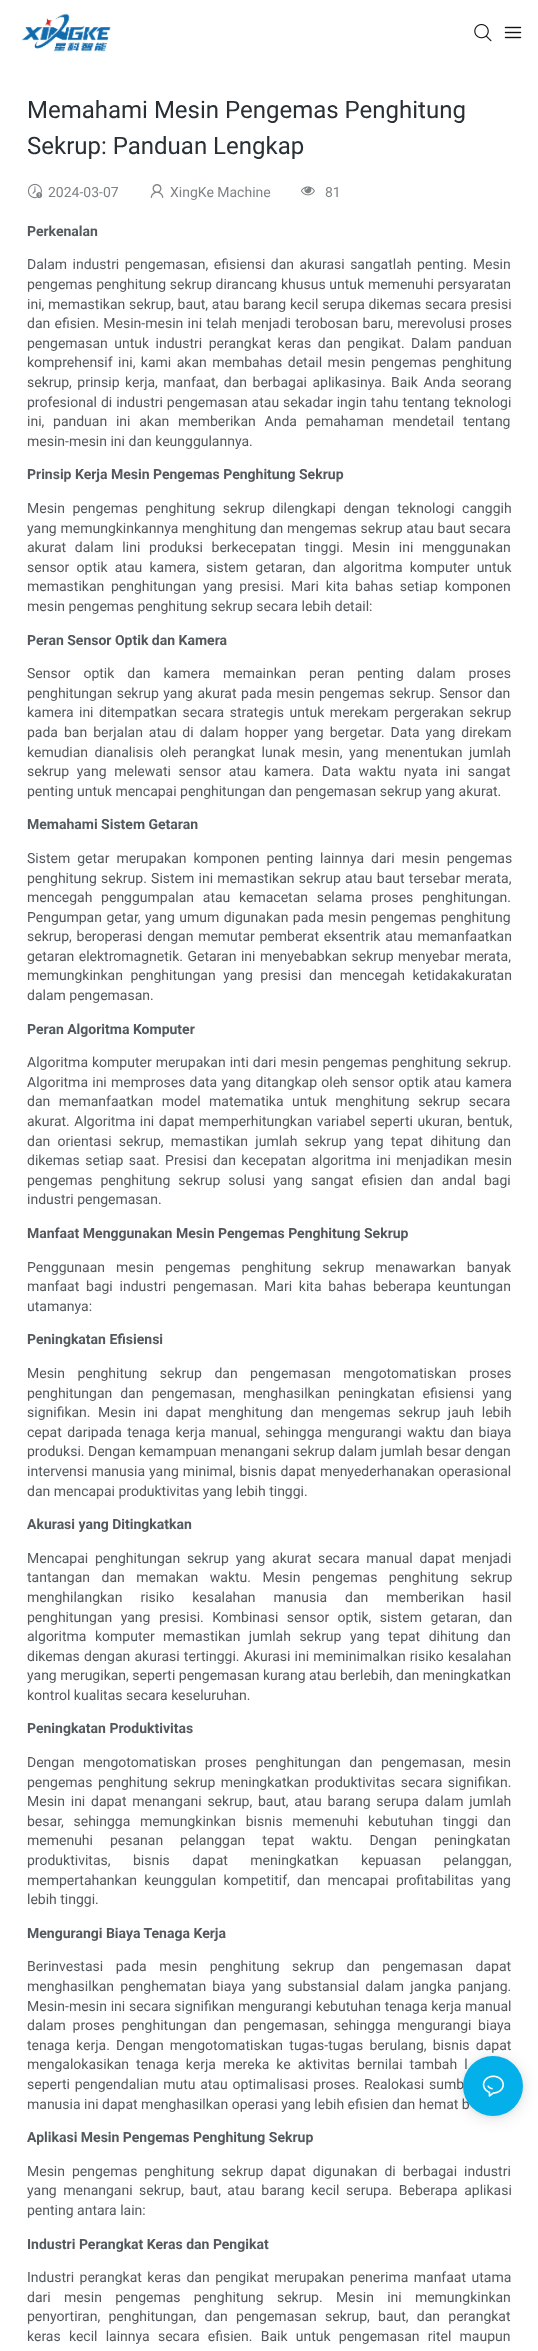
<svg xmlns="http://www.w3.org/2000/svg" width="538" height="2351">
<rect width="100%" height="100%" fill="#fff"/>
<image x="21" y="13" width="90" height="39" href="media/1.png"/>
<image x="474" y="24" width="18" height="18" href="media/2.png"/>
<image x="504" y="26" width="18" height="13" href="media/3.png"/>
<text x="27" y="118" style="font-family:Roboto;font-size:24px;fill:#283036">Memahami Mesin Pengemas Penghitung</text>
<text x="27" y="154" style="font-family:Roboto;font-size:24px;fill:#283036">Sekrup: Panduan Lengkap</text>
<image x="27" y="183" width="16" height="16" href="media/4.png"/>
<text x="48" y="197" style="font-family:Roboto;font-size:14px;fill:#7e8386">2024-03-07</text>
<image x="150" y="184" width="14" height="14" href="media/5.png"/>
<text x="170" y="197" style="font-family:Roboto;font-size:14px;fill:#7e8386">XingKe Machine</text>
<image x="301" y="186" width="14" height="10" href="media/6.png"/>
<text x="325" y="197" style="font-family:Roboto;font-size:14px;fill:#7e8386">81</text>
<text x="27" y="236" style="font-family:Roboto;font-size:14px;font-weight:bold;fill:#53595e">Perkenalan</text>
<text x="27" y="269" word-spacing="2" style="font-family:Roboto;font-size:14px;fill:#53595e">Dalam industri pengemasan, efisiensi dan akurasi sangatlah penting. Mesin</text>
<text x="27" y="289" word-spacing="0.25" style="font-family:Roboto;font-size:14px;fill:#53595e">pengemas penghitung sekrup dirancang khusus untuk memenuhi persyaratan</text>
<text x="27" y="309" word-spacing="0.25" style="font-family:Roboto;font-size:14px;fill:#53595e">ini, memastikan sekrup, baut, atau barang kecil serupa dikemas secara presisi</text>
<text x="27" y="328" word-spacing="0.75" style="font-family:Roboto;font-size:14px;fill:#53595e">dan efisien. Mesin-mesin ini telah menjadi terobosan baru, merevolusi proses</text>
<text x="27" y="348" word-spacing="3" style="font-family:Roboto;font-size:14px;fill:#53595e">pengemasan untuk industri perangkat keras dan pengikat. Dalam panduan</text>
<text x="27" y="367" word-spacing="2" style="font-family:Roboto;font-size:14px;fill:#53595e">komprehensif ini, kami akan membahas detail mesin pengemas penghitung</text>
<text x="27" y="387" word-spacing="2" style="font-family:Roboto;font-size:14px;fill:#53595e">sekrup, prinsip kerja, manfaat, dan berbagai aplikasinya. Baik Anda seorang</text>
<text x="27" y="407" word-spacing="0.5" style="font-family:Roboto;font-size:14px;fill:#53595e">profesional di industri pengemasan atau sekadar ingin tahu tentang teknologi</text>
<text x="27" y="426" word-spacing="5.25" style="font-family:Roboto;font-size:14px;fill:#53595e">ini, panduan ini akan memberikan Anda pemahaman mendetail tentang</text>
<text x="27" y="446" style="font-family:Roboto;font-size:14px;fill:#53595e">mesin-mesin ini dan keunggulannya.</text>
<text x="27" y="479" style="font-family:Roboto;font-size:14px;font-weight:bold;fill:#53595e">Prinsip Kerja Mesin Pengemas Penghitung Sekrup</text>
<text x="27" y="513" word-spacing="4" style="font-family:Roboto;font-size:14px;fill:#53595e">Mesin pengemas penghitung sekrup dilengkapi dengan teknologi canggih</text>
<text x="27" y="533" word-spacing="0.25" style="font-family:Roboto;font-size:14px;fill:#53595e">yang memungkinkannya menghitung dan mengemas sekrup atau baut secara</text>
<text x="27" y="552" word-spacing="5.25" style="font-family:Roboto;font-size:14px;fill:#53595e">akurat dalam lini produksi berkecepatan tinggi. Mesin ini menggunakan</text>
<text x="27" y="572" word-spacing="3.75" style="font-family:Roboto;font-size:14px;fill:#53595e">sensor optik atau kamera, sistem getaran, dan algoritma komputer untuk</text>
<text x="27" y="591" word-spacing="3.25" style="font-family:Roboto;font-size:14px;fill:#53595e">memastikan penghitungan yang presisi. Mari kita bahas setiap komponen</text>
<text x="27" y="611" style="font-family:Roboto;font-size:14px;fill:#53595e">mesin pengemas penghitung sekrup secara lebih detail:</text>
<text x="27" y="645" style="font-family:Roboto;font-size:14px;font-weight:bold;fill:#53595e">Peran Sensor Optik dan Kamera</text>
<text x="27" y="678" word-spacing="9.5" style="font-family:Roboto;font-size:14px;fill:#53595e">Sensor optik dan kamera memainkan peran penting dalam proses</text>
<text x="27" y="698" word-spacing="1" style="font-family:Roboto;font-size:14px;fill:#53595e">penghitungan sekrup yang akurat pada mesin pengemas sekrup. Sensor dan</text>
<text x="27" y="717" word-spacing="2" style="font-family:Roboto;font-size:14px;fill:#53595e">kamera ini ditempatkan secara strategis untuk merekam pergerakan sekrup</text>
<text x="27" y="737" word-spacing="2.5" style="font-family:Roboto;font-size:14px;fill:#53595e">pada ban berjalan atau di dalam hopper yang bergetar. Data yang direkam</text>
<text x="27" y="757" word-spacing="3" style="font-family:Roboto;font-size:14px;fill:#53595e">kemudian dianalisis oleh perangkat lunak mesin, yang menentukan jumlah</text>
<text x="27" y="776" word-spacing="4.25" style="font-family:Roboto;font-size:14px;fill:#53595e">sekrup yang melewati sensor atau kamera. Data waktu nyata ini sangat</text>
<text x="27" y="796" style="font-family:Roboto;font-size:14px;fill:#53595e">penting untuk mencapai penghitungan dan pengemasan sekrup yang akurat.</text>
<text x="27" y="829" style="font-family:Roboto;font-size:14px;font-weight:bold;fill:#53595e">Memahami Sistem Getaran</text>
<text x="27" y="863" word-spacing="3.5" style="font-family:Roboto;font-size:14px;fill:#53595e">Sistem getar merupakan komponen penting lainnya dari mesin pengemas</text>
<text x="27" y="883" word-spacing="0.75" style="font-family:Roboto;font-size:14px;fill:#53595e">penghitung sekrup. Sistem ini memastikan sekrup atau baut tersebar merata,</text>
<text x="27" y="902" word-spacing="5.25" style="font-family:Roboto;font-size:14px;fill:#53595e">mencegah penggumpalan atau kemacetan selama proses penghitungan.</text>
<text x="27" y="922" word-spacing="1" style="font-family:Roboto;font-size:14px;fill:#53595e">Pengumpan getar, yang umum digunakan pada mesin pengemas penghitung</text>
<text x="27" y="941" word-spacing="1.25" style="font-family:Roboto;font-size:14px;fill:#53595e">sekrup, beroperasi dengan memutar pemberat eksentrik atau memanfaatkan</text>
<text x="27" y="961" word-spacing="1" style="font-family:Roboto;font-size:14px;fill:#53595e">getaran elektromagnetik. Getaran ini menyebabkan sekrup menyebar merata,</text>
<text x="27" y="980" word-spacing="4" style="font-family:Roboto;font-size:14px;fill:#53595e">memungkinkan penghitungan yang presisi dan mencegah ketidakakuratan</text>
<text x="27" y="1000" style="font-family:Roboto;font-size:14px;fill:#53595e">dalam pengemasan.</text>
<text x="27" y="1034" style="font-family:Roboto;font-size:14px;font-weight:bold;fill:#53595e">Peran Algoritma Komputer</text>
<text x="27" y="1067" word-spacing="0.5" style="font-family:Roboto;font-size:14px;fill:#53595e">Algoritma komputer merupakan inti dari mesin pengemas penghitung sekrup.</text>
<text x="27" y="1087" word-spacing="0.75" style="font-family:Roboto;font-size:14px;fill:#53595e">Algoritma ini memproses data yang ditangkap oleh sensor optik atau kamera</text>
<text x="27" y="1106" word-spacing="5" style="font-family:Roboto;font-size:14px;fill:#53595e">dan memanfaatkan model matematika untuk menghitung sekrup secara</text>
<text x="27" y="1126" word-spacing="1" style="font-family:Roboto;font-size:14px;fill:#53595e">akurat. Algoritma ini dapat memperhitungkan variabel seperti ukuran, bentuk,</text>
<text x="27" y="1146" word-spacing="3.75" style="font-family:Roboto;font-size:14px;fill:#53595e">dan orientasi sekrup, memastikan jumlah sekrup yang tepat dihitung dan</text>
<text x="27" y="1165" word-spacing="2" style="font-family:Roboto;font-size:14px;fill:#53595e">dikemas setiap saat. Presisi dan kecepatan algoritma ini menjadikan mesin</text>
<text x="27" y="1185" word-spacing="4.5" style="font-family:Roboto;font-size:14px;fill:#53595e">pengemas penghitung sekrup solusi yang sangat efisien dan andal bagi</text>
<text x="27" y="1204" style="font-family:Roboto;font-size:14px;fill:#53595e">industri pengemasan.</text>
<text x="27" y="1238" style="font-family:Roboto;font-size:14px;font-weight:bold;fill:#53595e">Manfaat Menggunakan Mesin Pengemas Penghitung Sekrup</text>
<text x="27" y="1272" word-spacing="7.5" style="font-family:Roboto;font-size:14px;fill:#53595e">Penggunaan mesin pengemas penghitung sekrup menawarkan banyak</text>
<text x="27" y="1291" word-spacing="3.25" style="font-family:Roboto;font-size:14px;fill:#53595e">manfaat bagi industri pengemasan. Mari kita bahas beberapa keuntungan</text>
<text x="27" y="1311" style="font-family:Roboto;font-size:14px;fill:#53595e">utamanya:</text>
<text x="27" y="1344" style="font-family:Roboto;font-size:14px;font-weight:bold;fill:#53595e">Peningkatan Efisiensi</text>
<text x="27" y="1378" word-spacing="9" style="font-family:Roboto;font-size:14px;fill:#53595e">Mesin penghitung sekrup dan pengemasan mengotomatiskan proses</text>
<text x="27" y="1398" word-spacing="4.5" style="font-family:Roboto;font-size:14px;fill:#53595e">penghitungan dan pengemasan, menghasilkan peningkatan efisiensi yang</text>
<text x="27" y="1417" word-spacing="4" style="font-family:Roboto;font-size:14px;fill:#53595e">signifikan. Mesin ini dapat menghitung dan mengemas sekrup jauh lebih</text>
<text x="27" y="1437" word-spacing="1.9" style="font-family:Roboto;font-size:14px;fill:#53595e">cepat daripada tenaga kerja manual, sehingga mengurangi waktu dan biaya</text>
<text x="27" y="1456" style="font-family:Roboto;font-size:14px;fill:#53595e">produksi. Dengan kemampuan menangani sekrup dalam jumlah besar dengan</text>
<text x="27" y="1476" word-spacing="0.5" style="font-family:Roboto;font-size:14px;fill:#53595e">intervensi manusia yang minimal, bisnis dapat menyederhanakan operasional</text>
<text x="27" y="1496" style="font-family:Roboto;font-size:14px;fill:#53595e">dan mencapai produktivitas yang lebih tinggi.</text>
<text x="27" y="1529" style="font-family:Roboto;font-size:14px;font-weight:bold;fill:#53595e">Akurasi yang Ditingkatkan</text>
<text x="27" y="1563" word-spacing="3.25" style="font-family:Roboto;font-size:14px;fill:#53595e">Mencapai penghitungan sekrup yang akurat secara manual dapat menjadi</text>
<text x="27" y="1582" word-spacing="8" style="font-family:Roboto;font-size:14px;fill:#53595e">tantangan dan memakan waktu. Mesin pengemas penghitung sekrup</text>
<text x="27" y="1602" word-spacing="14.5" style="font-family:Roboto;font-size:14px;fill:#53595e">menghilangkan risiko kesalahan manusia dan memberikan hasil</text>
<text x="27" y="1622" word-spacing="5" style="font-family:Roboto;font-size:14px;fill:#53595e">penghitungan yang presisi. Kombinasi sensor optik, sistem getaran, dan</text>
<text x="27" y="1641" word-spacing="5" style="font-family:Roboto;font-size:14px;fill:#53595e">algoritma komputer memastikan jumlah sekrup yang tepat dihitung dan</text>
<text x="27" y="1661" word-spacing="0.75" style="font-family:Roboto;font-size:14px;fill:#53595e">dikemas dengan akurasi tertinggi. Akurasi ini meminimalkan risiko kesalahan</text>
<text x="27" y="1680" style="font-family:Roboto;font-size:14px;fill:#53595e">yang merugikan, seperti pengemasan kurang atau berlebih, dan meningkatkan</text>
<text x="27" y="1700" style="font-family:Roboto;font-size:14px;fill:#53595e">kontrol kualitas secara keseluruhan.</text>
<text x="27" y="1733" style="font-family:Roboto;font-size:14px;font-weight:bold;fill:#53595e">Peningkatan Produktivitas</text>
<text x="27" y="1767" word-spacing="5" style="font-family:Roboto;font-size:14px;fill:#53595e">Dengan mengotomatiskan proses penghitungan dan pengemasan, mesin</text>
<text x="27" y="1787" word-spacing="2" style="font-family:Roboto;font-size:14px;fill:#53595e">pengemas penghitung sekrup meningkatkan produktivitas secara signifikan.</text>
<text x="27" y="1806" word-spacing="2.25" style="font-family:Roboto;font-size:14px;fill:#53595e">Mesin ini dapat menangani sekrup, baut, atau barang serupa dalam jumlah</text>
<text x="27" y="1826" word-spacing="6.25" style="font-family:Roboto;font-size:14px;fill:#53595e">besar, sehingga memungkinkan bisnis memenuhi kebutuhan tinggi dan</text>
<text x="27" y="1845" word-spacing="13.5" style="font-family:Roboto;font-size:14px;fill:#53595e">memenuhi pesanan pelanggan tepat waktu. Dengan peningkatan</text>
<text x="27" y="1865" word-spacing="19" style="font-family:Roboto;font-size:14px;fill:#53595e">produktivitas, bisnis dapat meningkatkan kepuasan pelanggan,</text>
<text x="27" y="1885" word-spacing="3.75" style="font-family:Roboto;font-size:14px;fill:#53595e">mempertahankan keunggulan kompetitif, dan mencapai profitabilitas yang</text>
<text x="27" y="1904" style="font-family:Roboto;font-size:14px;fill:#53595e">lebih tinggi.</text>
<text x="27" y="1938" style="font-family:Roboto;font-size:14px;font-weight:bold;fill:#53595e">Mengurangi Biaya Tenaga Kerja</text>
<text x="27" y="1971" word-spacing="9" style="font-family:Roboto;font-size:14px;fill:#53595e">Berinvestasi pada mesin penghitung sekrup dan pengemasan dapat</text>
<text x="27" y="1991" word-spacing="2.75" style="font-family:Roboto;font-size:14px;fill:#53595e">menghasilkan penghematan biaya yang substansial dalam jangka panjang.</text>
<text x="27" y="2011" word-spacing="0.25" style="font-family:Roboto;font-size:14px;fill:#53595e">Mesin-mesin ini secara signifikan mengurangi kebutuhan tenaga kerja manual</text>
<text x="27" y="2030" word-spacing="3.25" style="font-family:Roboto;font-size:14px;fill:#53595e">dalam proses penghitungan dan pengemasan, sehingga mengurangi biaya</text>
<text x="27" y="2050" word-spacing="2.75" style="font-family:Roboto;font-size:14px;fill:#53595e">tenaga kerja. Dengan mengotomatiskan tugas-tugas berulang, bisnis dapat</text>
<text x="27" y="2069" word-spacing="3.5" style="font-family:Roboto;font-size:14px;fill:#53595e">mengalokasikan tenaga kerja mereka ke aktivitas bernilai tambah l</text>
<text x="27" y="2089" word-spacing="1.25" style="font-family:Roboto;font-size:14px;fill:#53595e">seperti pengendalian mutu atau optimalisasi proses. Realokasi sumb</text>
<text x="27" y="2109" style="font-family:Roboto;font-size:14px;fill:#53595e">manusia ini dapat menghasilkan operasi yang lebih efisien dan hemat b</text>
<text x="27" y="2142" style="font-family:Roboto;font-size:14px;font-weight:bold;fill:#53595e">Aplikasi Mesin Pengemas Penghitung Sekrup</text>
<text x="27" y="2176" word-spacing="3.5" style="font-family:Roboto;font-size:14px;fill:#53595e">Mesin pengemas penghitung sekrup dapat digunakan di berbagai industri</text>
<text x="27" y="2195" word-spacing="3" style="font-family:Roboto;font-size:14px;fill:#53595e">yang menangani sekrup, baut, atau barang kecil serupa. Beberapa aplikasi</text>
<text x="27" y="2215" style="font-family:Roboto;font-size:14px;fill:#53595e">penting antara lain:</text>
<text x="27" y="2249" style="font-family:Roboto;font-size:14px;font-weight:bold;fill:#53595e">Industri Perangkat Keras dan Pengikat</text>
<text x="27" y="2282" word-spacing="2" style="font-family:Roboto;font-size:14px;fill:#53595e">Industri perangkat keras dan pengikat merupakan penerima manfaat utama</text>
<text x="27" y="2302" word-spacing="9.75" style="font-family:Roboto;font-size:14px;fill:#53595e">dari mesin pengemas penghitung sekrup. Mesin ini memungkinkan</text>
<text x="27" y="2321" word-spacing="4.75" style="font-family:Roboto;font-size:14px;fill:#53595e">penyortiran, penghitungan, dan pengemasan sekrup, baut, dan perangkat</text>
<text x="27" y="2341" word-spacing="4.75" style="font-family:Roboto;font-size:14px;fill:#53595e">keras kecil lainnya secara efisien. Baik untuk pengemasan ritel maupun</text>
<rect x="463" y="2058" width="60" height="60" rx="30" fill="#0000001f" filter="blur(8px)"/>
<rect x="463" y="2057" width="60" height="60" rx="30" fill="#0000000f" filter="blur(2px)"/>
<circle cx="493" cy="2086" r="30" fill="#03b0e9"/>
<image x="482" y="2075" width="22" height="22" href="media/7.png"/>
</svg>
